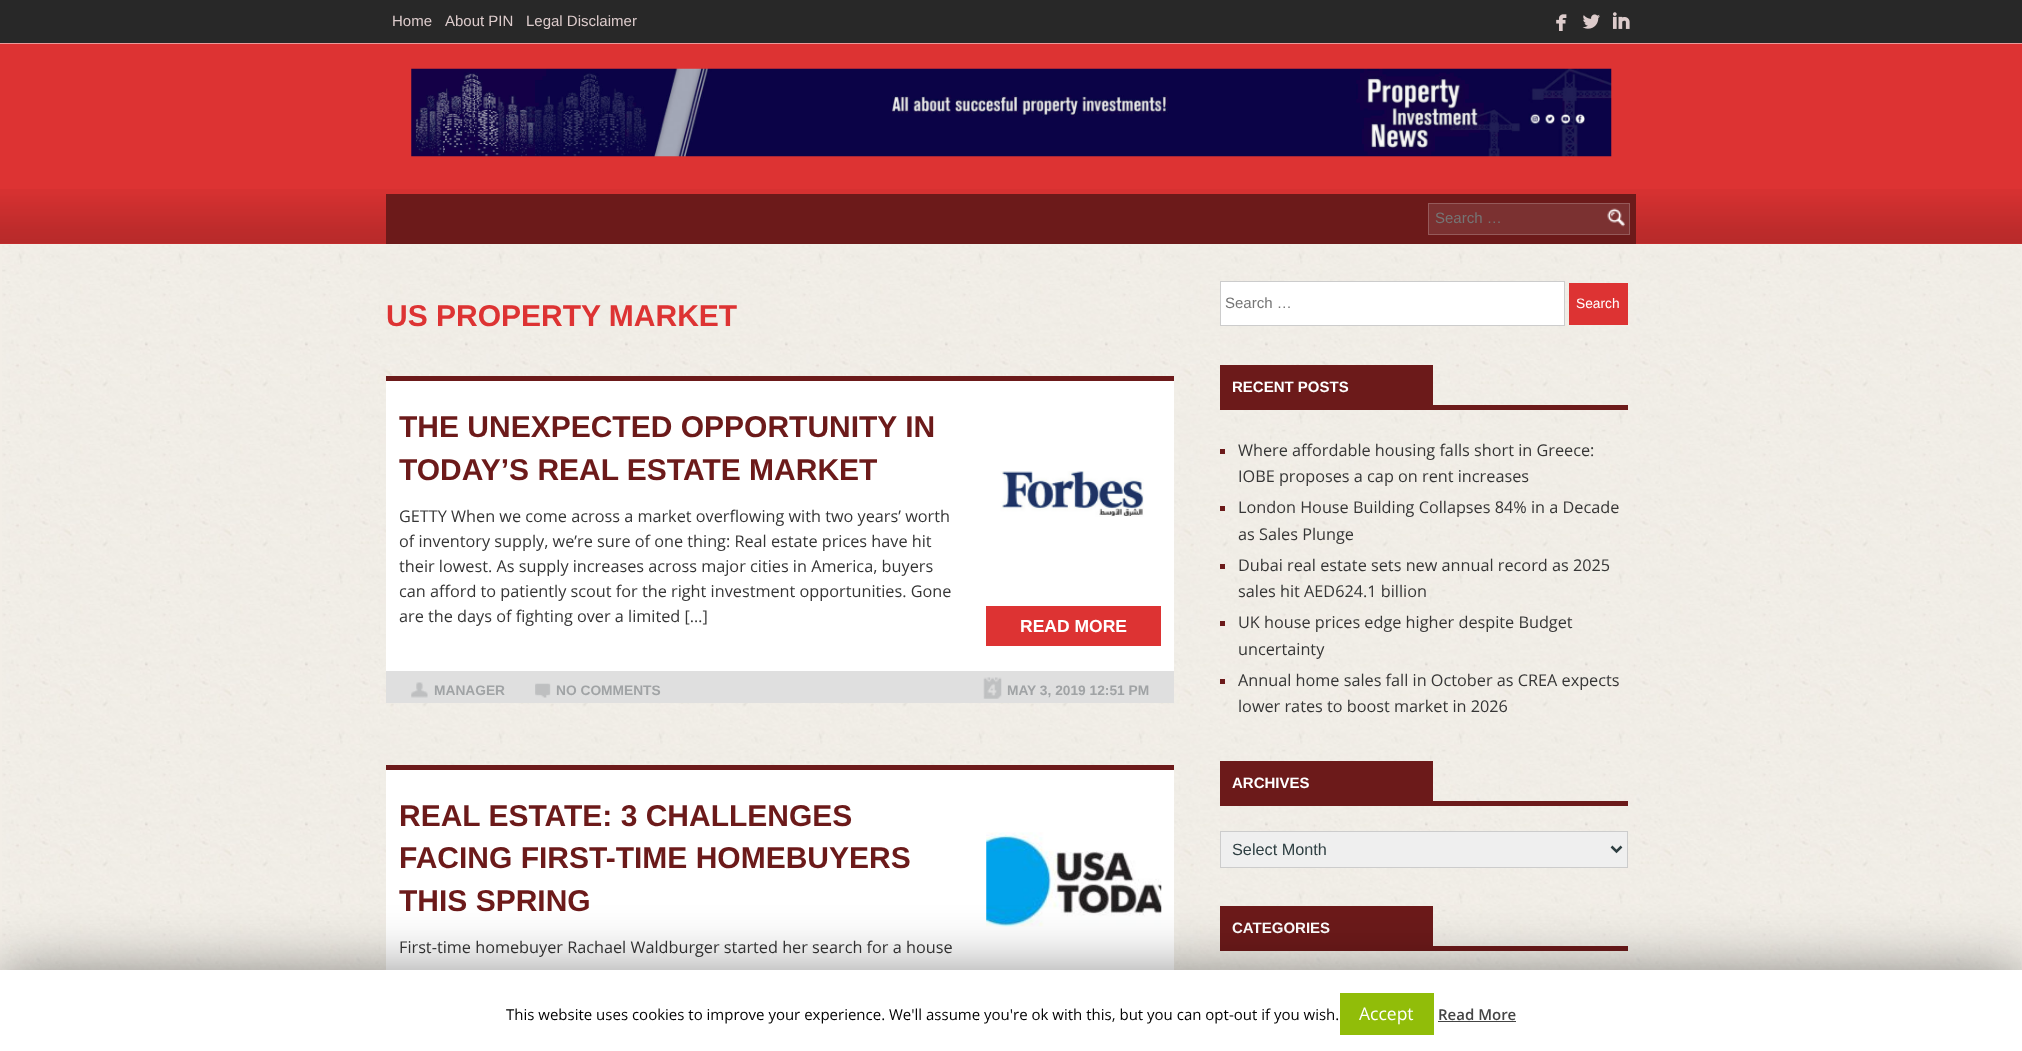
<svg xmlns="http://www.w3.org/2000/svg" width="2022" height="1051">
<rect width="100%" height="100%" fill="#f2eee7"/>
<rect width="2022" height="43" fill="#282828"/>
<text x="392" y="26" style="font-family:Liberation Sans;font-size:15px;fill:#dcc">Home</text>
<text x="445" y="26" style="font-family:Liberation Sans;font-size:15px;fill:#dcc">About PIN</text>
<text x="526" y="26" style="font-family:Liberation Sans;font-size:15px;fill:#dcc">Legal Disclaimer</text>
<image x="1556" y="14" width="11" height="17" href="media/1.png"/>
<image x="1582" y="14" width="18" height="15" href="media/2.png"/>
<image x="1612" y="12" width="18" height="17" href="media/3.png"/>
<rect y="44" width="2022" height="200" fill="#d33"/>
<image x="0" y="189" width="2022" height="55" href="media/4.png"/>
<rect y="43" width="2022" height="1" fill="#e99"/>
<image x="411" y="68" width="1201" height="89" href="media/5.png"/>
<rect x="386" y="194" width="1250" height="50" fill="#6c1a1a"/>
<rect x="1428.5" y="203.5" width="201" height="31" fill="#7b3131" stroke="#955a5a"/>
<text x="1435" y="223" style="font-family:Liberation Sans;font-size:15px;fill:#757575">Search …</text>
<image x="1607" y="208" width="18" height="19" href="media/6.png"/>
<image x="2" y="245" width="2019" height="725" href="media/7.png"/>
<text x="386" y="326" style="font-family:Liberation Sans;font-size:30px;font-weight:bold;fill:#d33">US PROPERTY MARKET</text>
<rect x="386" y="381" width="788" height="290" fill="#fff"/>
<rect x="386" y="376" width="788" height="5" fill="#6c1a1a"/>
<text x="399" y="437" style="font-family:Liberation Sans;font-size:30px;font-weight:bold;fill:#6c1a1a">THE UNEXPECTED OPPORTUNITY IN</text>
<text x="399" y="480" style="font-family:Liberation Sans;font-size:30px;font-weight:bold;fill:#6c1a1a">TODAY’S REAL ESTATE MARKET</text>
<text x="399" y="522" style="font-family:Open Sans;font-size:16.25px;fill:#363636">GETTY When we come across a market overflowing with two years’ worth</text>
<text x="399" y="547" style="font-family:Open Sans;font-size:16.25px;fill:#363636">of inventory supply, we’re sure of one thing: Real estate prices have hit</text>
<text x="399" y="572" style="font-family:Open Sans;font-size:16.25px;fill:#363636">their lowest. As supply increases across major cities in America, buyers</text>
<text x="399" y="597" style="font-family:Open Sans;font-size:16.25px;fill:#363636">can afford to patiently scout for the right investment opportunities. Gone</text>
<text x="399" y="622" style="font-family:Open Sans;font-size:16.25px;fill:#363636">are the days of fighting over a limited […]</text>
<image x="1000" y="471" width="144" height="46" href="media/8.png"/>
<rect x="986" y="606" width="175" height="40" fill="#d33"/>
<text x="1020" y="632" style="font-family:Liberation Sans;font-size:17.5px;font-weight:bold;fill:#fff">READ MORE</text>
<rect x="386" y="671" width="788" height="32" fill="#dfdfdf"/>
<image x="411" y="682" width="17" height="16" href="media/9.png"/>
<text x="434" y="695" style="font-family:Liberation Sans;font-size:13.75px;font-weight:bold;fill:#a0a3a5">MANAGER</text>
<image x="535" y="683" width="16" height="15" href="media/10.png"/>
<text x="556" y="695" style="font-family:Liberation Sans;font-size:13.75px;font-weight:bold;fill:#a0a3a5">NO COMMENTS</text>
<image x="983" y="677" width="19" height="22" href="media/11.png"/>
<text x="1007" y="695" style="font-family:Liberation Sans;font-size:13.75px;font-weight:bold;fill:#a0a3a5">MAY 3, 2019 12:51 PM</text>
<rect x="386" y="770" width="788" height="200" fill="#fff"/>
<rect x="386" y="765" width="788" height="5" fill="#6c1a1a"/>
<text x="399" y="826" style="font-family:Liberation Sans;font-size:30px;font-weight:bold;fill:#6c1a1a">REAL ESTATE: 3 CHALLENGES</text>
<text x="399" y="868" style="font-family:Liberation Sans;font-size:30px;font-weight:bold;fill:#6c1a1a">FACING FIRST-TIME HOMEBUYERS</text>
<text x="399" y="911" style="font-family:Liberation Sans;font-size:30px;font-weight:bold;fill:#6c1a1a">THIS SPRING</text>
<image x="986" y="832" width="176" height="95" href="media/12.png"/>
<text x="399" y="953" style="font-family:Open Sans;font-size:16.25px;fill:#363636">First-time homebuyer Rachael Waldburger started her search for a house</text>
<rect x="1220.5" y="281.5" width="344" height="44" fill="#fff" stroke="#ccc"/>
<text x="1225" y="308" style="font-family:Liberation Sans;font-size:15px;fill:#757575">Search …</text>
<rect x="1569" y="283" width="59" height="42" fill="#d33"/>
<text x="1576" y="308" style="font-family:Liberation Sans;font-size:13.75px;fill:#fff">Search</text>
<rect x="1433" y="405" width="195" height="5" fill="#6c1a1a"/>
<rect x="1220" y="365" width="213" height="45" fill="#6c1a1a"/>
<text x="1232" y="392" style="font-family:Liberation Sans;font-size:15px;font-weight:bold;fill:#fff">RECENT POSTS</text>
<rect x="1220" y="449" width="5" height="5" fill="#6c1a1a"/>
<text x="1238" y="456" style="font-family:Open Sans;font-size:16.25px;fill:#363636">Where affordable housing falls short in Greece:</text>
<text x="1238" y="482" style="font-family:Open Sans;font-size:16.25px;fill:#363636">IOBE proposes a cap on rent increases</text>
<rect x="1220" y="506" width="5" height="5" fill="#6c1a1a"/>
<text x="1238" y="513" style="font-family:Open Sans;font-size:16.25px;fill:#363636">London House Building Collapses 84% in a Decade</text>
<text x="1238" y="540" style="font-family:Open Sans;font-size:16.25px;fill:#363636">as Sales Plunge</text>
<rect x="1220" y="564" width="5" height="5" fill="#6c1a1a"/>
<text x="1238" y="571" style="font-family:Open Sans;font-size:16.25px;fill:#363636">Dubai real estate sets new annual record as 2025</text>
<text x="1238" y="597" style="font-family:Open Sans;font-size:16.25px;fill:#363636">sales hit AED624.1 billion</text>
<rect x="1220" y="621" width="5" height="5" fill="#6c1a1a"/>
<text x="1238" y="628" style="font-family:Open Sans;font-size:16.25px;fill:#363636">UK house prices edge higher despite Budget</text>
<text x="1238" y="655" style="font-family:Open Sans;font-size:16.25px;fill:#363636">uncertainty</text>
<rect x="1220" y="679" width="5" height="5" fill="#6c1a1a"/>
<text x="1238" y="686" style="font-family:Open Sans;font-size:16.25px;fill:#363636">Annual home sales fall in October as CREA expects</text>
<text x="1238" y="712" style="font-family:Open Sans;font-size:16.25px;fill:#363636">lower rates to boost market in 2026</text>
<rect x="1433" y="801" width="195" height="5" fill="#6c1a1a"/>
<rect x="1220" y="761" width="213" height="45" fill="#6c1a1a"/>
<text x="1232" y="788" style="font-family:Liberation Sans;font-size:15px;font-weight:bold;fill:#fff">ARCHIVES</text>
<rect x="1220.5" y="831.5" width="407" height="36" fill="#efefef" stroke="#ccc"/>
<path d="M1611.5 846.5l5 5l5-5" fill="none" stroke="#2e3f42" stroke-width="2.5"/>
<text x="1232" y="855" style="font-family:Liberation Sans;font-size:16.25px;fill:#2e3f42">Select Month</text>
<rect x="1433" y="946" width="195" height="5" fill="#6c1a1a"/>
<rect x="1220" y="906" width="213" height="45" fill="#6c1a1a"/>
<text x="1232" y="933" style="font-family:Liberation Sans;font-size:15px;font-weight:bold;fill:#fff">CATEGORIES</text>
<rect y="976" width="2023" height="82" fill="#00000080" filter="blur(31px)"/>
<rect y="970" width="2022" height="81" fill="#fff"/>
<text x="506" y="1020" style="font-family:Open Sans;font-size:15px;fill:#000">This website uses cookies to improve your experience. We'll assume you're ok with this, but you can opt-out if you wish.</text>
<rect x="1340" y="993" width="94" height="42" fill="#91bd09"/>
<text x="1359" y="1020" style="font-family:Open Sans;font-size:17.5px;fill:#fff">Accept</text>
<text x="1438" y="1020" style="font-family:Open Sans;font-size:15px;font-weight:600;fill:#444">Read More</text>
<rect x="1438" y="1021" width="78" height="1" fill="#444"/>
</svg>
